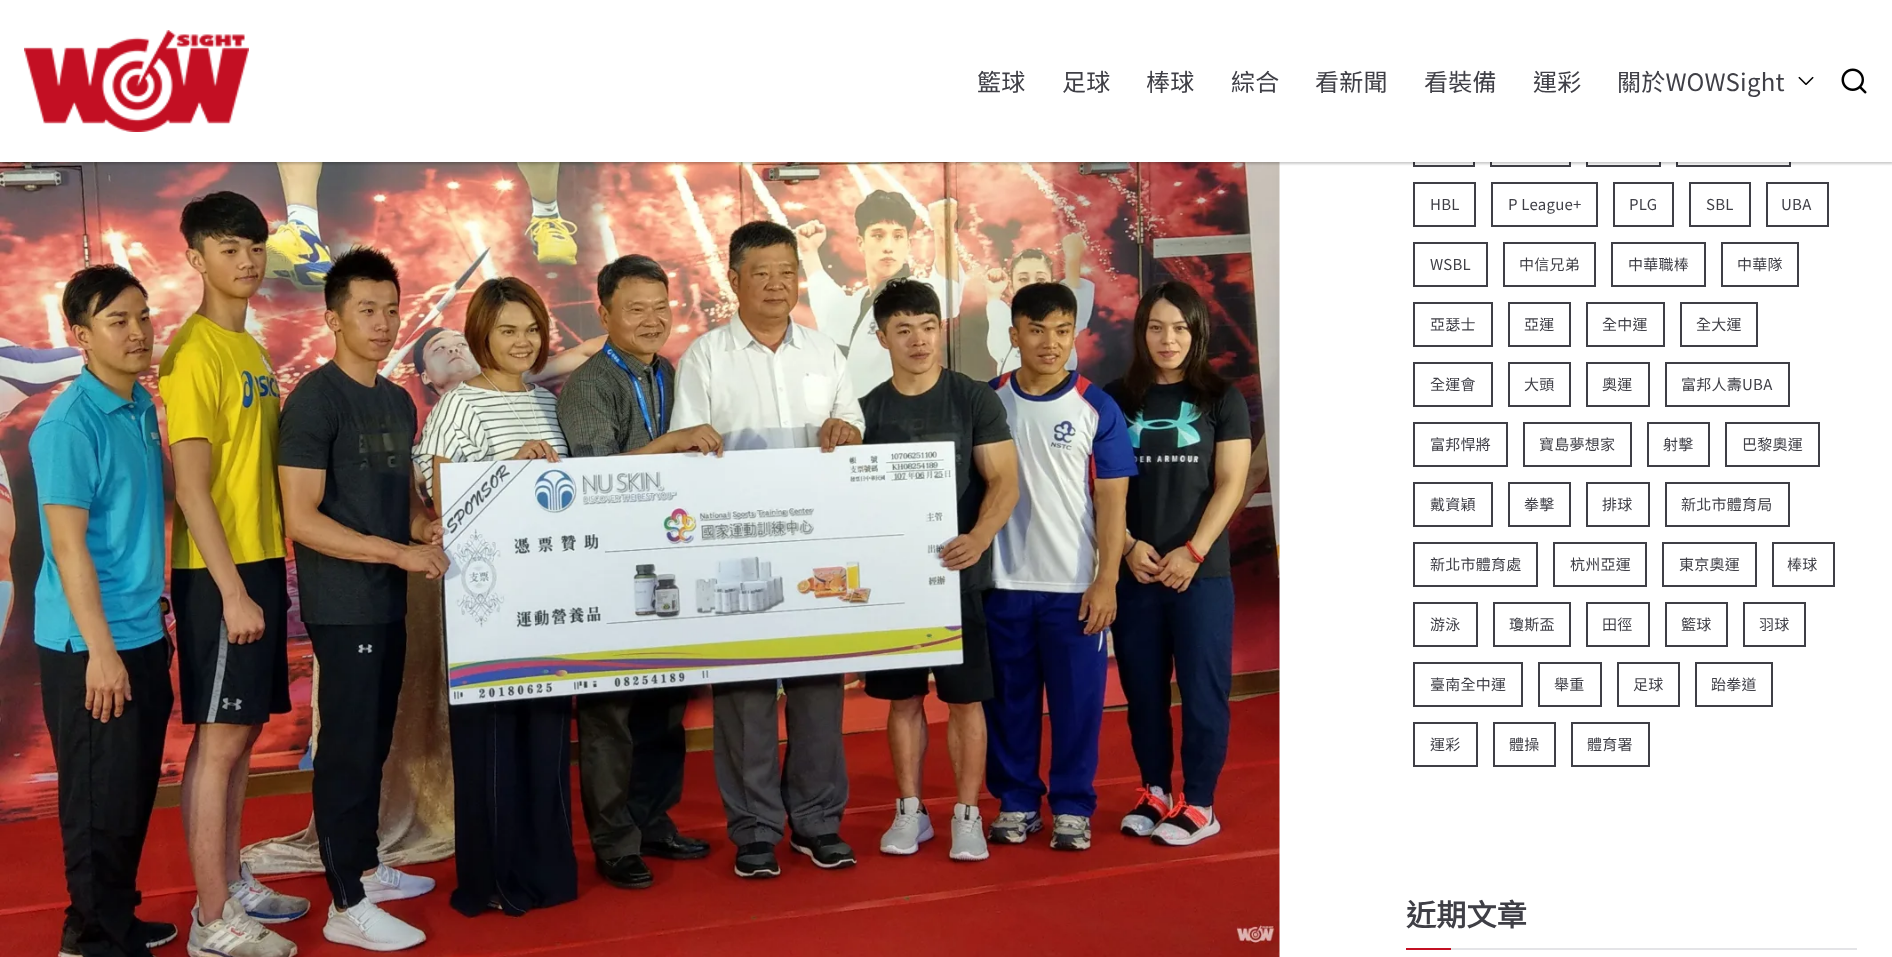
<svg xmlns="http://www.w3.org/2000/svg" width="1892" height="957">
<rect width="100%" height="100%" fill="#fff"/>
<image x="0" y="162" width="1280" height="795" href="media/4.png"/>
<rect x="1414" y="123" width="60" height="43" fill="none" stroke="#3f3f46" stroke-width="2"/>
<rect x="1491" y="123" width="79" height="43" fill="none" stroke="#3f3f46" stroke-width="2"/>
<rect x="1587" y="123" width="73" height="43" fill="none" stroke="#3f3f46" stroke-width="2"/>
<rect x="1677" y="123" width="113" height="43" fill="none" stroke="#3f3f46" stroke-width="2"/>
<rect y="2" width="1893" height="162" fill="#00000033" filter="blur(1px)"/>
<rect width="1892" height="162" fill="#fff"/>
<image x="24" y="30" width="225" height="102" href="media/1.png"/>
<text x="977" y="91" style="font-family:Noto Sans TC;font-size:24px;letter-spacing:0.25px;fill:#3f3f46">籃球</text>
<text x="1062" y="91" style="font-family:Noto Sans TC;font-size:24px;letter-spacing:0.25px;fill:#3f3f46">足球</text>
<text x="1146" y="91" style="font-family:Noto Sans TC;font-size:24px;letter-spacing:0.25px;fill:#3f3f46">棒球</text>
<text x="1231" y="91" style="font-family:Noto Sans TC;font-size:24px;letter-spacing:0.25px;fill:#3f3f46">綜合</text>
<text x="1315" y="91" style="font-family:Noto Sans TC;font-size:24px;letter-spacing:0.25px;fill:#3f3f46">看新聞</text>
<text x="1424" y="91" style="font-family:Noto Sans TC;font-size:24px;letter-spacing:0.25px;fill:#3f3f46">看裝備</text>
<text x="1533" y="91" style="font-family:Noto Sans TC;font-size:24px;letter-spacing:0.25px;fill:#3f3f46">運彩</text>
<text x="1617" y="91" style="font-family:Noto Sans TC;font-size:24px;letter-spacing:0.25px;fill:#3f3f46">關於WOWSight</text>
<image x="1798" y="76" width="16" height="9" href="media/2.png"/>
<image x="1841" y="68" width="26" height="26" href="media/3.png"/>
<rect x="1414" y="183" width="61" height="43" fill="none" stroke="#3f3f46" stroke-width="2"/>
<text x="1430" y="210" style="font-family:Noto Sans TC;font-size:15px;letter-spacing:0.25px;fill:#3f3f46">HBL</text>
<rect x="1492" y="183" width="105" height="43" fill="none" stroke="#3f3f46" stroke-width="2"/>
<text x="1508" y="210" style="font-family:Noto Sans TC;font-size:15px;letter-spacing:0.25px;fill:#3f3f46">P League+</text>
<rect x="1614" y="183" width="59" height="43" fill="none" stroke="#3f3f46" stroke-width="2"/>
<text x="1629" y="210" style="font-family:Noto Sans TC;font-size:15px;letter-spacing:0.25px;fill:#3f3f46">PLG</text>
<rect x="1690" y="183" width="60" height="43" fill="none" stroke="#3f3f46" stroke-width="2"/>
<text x="1706" y="210" style="font-family:Noto Sans TC;font-size:15px;letter-spacing:0.25px;fill:#3f3f46">SBL</text>
<rect x="1767" y="183" width="61" height="43" fill="none" stroke="#3f3f46" stroke-width="2"/>
<text x="1781" y="210" style="font-family:Noto Sans TC;font-size:15px;letter-spacing:0.25px;fill:#3f3f46">UBA</text>
<rect x="1414" y="243" width="73" height="43" fill="none" stroke="#3f3f46" stroke-width="2"/>
<text x="1430" y="270" style="font-family:Noto Sans TC;font-size:15px;letter-spacing:0.25px;fill:#3f3f46">WSBL</text>
<rect x="1504" y="243" width="91" height="43" fill="none" stroke="#3f3f46" stroke-width="2"/>
<text x="1519" y="270" style="font-family:Noto Sans TC;font-size:15px;letter-spacing:0.25px;fill:#3f3f46">中信兄弟</text>
<rect x="1612" y="243" width="93" height="43" fill="none" stroke="#3f3f46" stroke-width="2"/>
<text x="1628" y="270" style="font-family:Noto Sans TC;font-size:15px;letter-spacing:0.25px;fill:#3f3f46">中華職棒</text>
<rect x="1722" y="243" width="76" height="43" fill="none" stroke="#3f3f46" stroke-width="2"/>
<text x="1737" y="270" style="font-family:Noto Sans TC;font-size:15px;letter-spacing:0.25px;fill:#3f3f46">中華隊</text>
<rect x="1414" y="303" width="78" height="43" fill="none" stroke="#3f3f46" stroke-width="2"/>
<text x="1430" y="330" style="font-family:Noto Sans TC;font-size:15px;letter-spacing:0.25px;fill:#3f3f46">亞瑟士</text>
<rect x="1509" y="303" width="61" height="43" fill="none" stroke="#3f3f46" stroke-width="2"/>
<text x="1524" y="330" style="font-family:Noto Sans TC;font-size:15px;letter-spacing:0.25px;fill:#3f3f46">亞運</text>
<rect x="1587" y="303" width="77" height="43" fill="none" stroke="#3f3f46" stroke-width="2"/>
<text x="1602" y="330" style="font-family:Noto Sans TC;font-size:15px;letter-spacing:0.25px;fill:#3f3f46">全中運</text>
<rect x="1681" y="303" width="76" height="43" fill="none" stroke="#3f3f46" stroke-width="2"/>
<text x="1696" y="330" style="font-family:Noto Sans TC;font-size:15px;letter-spacing:0.25px;fill:#3f3f46">全大運</text>
<rect x="1414" y="363" width="78" height="43" fill="none" stroke="#3f3f46" stroke-width="2"/>
<text x="1430" y="390" style="font-family:Noto Sans TC;font-size:15px;letter-spacing:0.25px;fill:#3f3f46">全運會</text>
<rect x="1509" y="363" width="61" height="43" fill="none" stroke="#3f3f46" stroke-width="2"/>
<text x="1524" y="390" style="font-family:Noto Sans TC;font-size:15px;letter-spacing:0.25px;fill:#3f3f46">大頭</text>
<rect x="1587" y="363" width="62" height="43" fill="none" stroke="#3f3f46" stroke-width="2"/>
<text x="1602" y="390" style="font-family:Noto Sans TC;font-size:15px;letter-spacing:0.25px;fill:#3f3f46">奧運</text>
<rect x="1666" y="363" width="123" height="43" fill="none" stroke="#3f3f46" stroke-width="2"/>
<text x="1681" y="390" style="font-family:Noto Sans TC;font-size:15px;letter-spacing:0.25px;fill:#3f3f46">富邦人壽UBA</text>
<rect x="1414" y="423" width="93" height="43" fill="none" stroke="#3f3f46" stroke-width="2"/>
<text x="1430" y="450" style="font-family:Noto Sans TC;font-size:15px;letter-spacing:0.25px;fill:#3f3f46">富邦悍將</text>
<rect x="1524" y="423" width="107" height="43" fill="none" stroke="#3f3f46" stroke-width="2"/>
<text x="1539" y="450" style="font-family:Noto Sans TC;font-size:15px;letter-spacing:0.25px;fill:#3f3f46">寶島夢想家</text>
<rect x="1648" y="423" width="61" height="43" fill="none" stroke="#3f3f46" stroke-width="2"/>
<text x="1663" y="450" style="font-family:Noto Sans TC;font-size:15px;letter-spacing:0.25px;fill:#3f3f46">射擊</text>
<rect x="1726" y="423" width="93" height="43" fill="none" stroke="#3f3f46" stroke-width="2"/>
<text x="1742" y="450" style="font-family:Noto Sans TC;font-size:15px;letter-spacing:0.25px;fill:#3f3f46">巴黎奧運</text>
<rect x="1414" y="483" width="78" height="43" fill="none" stroke="#3f3f46" stroke-width="2"/>
<text x="1430" y="510" style="font-family:Noto Sans TC;font-size:15px;letter-spacing:0.25px;fill:#3f3f46">戴資穎</text>
<rect x="1509" y="483" width="61" height="43" fill="none" stroke="#3f3f46" stroke-width="2"/>
<text x="1524" y="510" style="font-family:Noto Sans TC;font-size:15px;letter-spacing:0.25px;fill:#3f3f46">拳擊</text>
<rect x="1587" y="483" width="62" height="43" fill="none" stroke="#3f3f46" stroke-width="2"/>
<text x="1602" y="510" style="font-family:Noto Sans TC;font-size:15px;letter-spacing:0.25px;fill:#3f3f46">排球</text>
<rect x="1666" y="483" width="123" height="43" fill="none" stroke="#3f3f46" stroke-width="2"/>
<text x="1681" y="510" style="font-family:Noto Sans TC;font-size:15px;letter-spacing:0.25px;fill:#3f3f46">新北市體育局</text>
<rect x="1414" y="543" width="123" height="43" fill="none" stroke="#3f3f46" stroke-width="2"/>
<text x="1430" y="570" style="font-family:Noto Sans TC;font-size:15px;letter-spacing:0.25px;fill:#3f3f46">新北市體育處</text>
<rect x="1554" y="543" width="92" height="43" fill="none" stroke="#3f3f46" stroke-width="2"/>
<text x="1570" y="570" style="font-family:Noto Sans TC;font-size:15px;letter-spacing:0.25px;fill:#3f3f46">杭州亞運</text>
<rect x="1663" y="543" width="93" height="43" fill="none" stroke="#3f3f46" stroke-width="2"/>
<text x="1679" y="570" style="font-family:Noto Sans TC;font-size:15px;letter-spacing:0.25px;fill:#3f3f46">東京奧運</text>
<rect x="1773" y="543" width="61" height="43" fill="none" stroke="#3f3f46" stroke-width="2"/>
<text x="1787" y="570" style="font-family:Noto Sans TC;font-size:15px;letter-spacing:0.25px;fill:#3f3f46">棒球</text>
<rect x="1414" y="603" width="63" height="43" fill="none" stroke="#3f3f46" stroke-width="2"/>
<text x="1430" y="630" style="font-family:Noto Sans TC;font-size:15px;letter-spacing:0.25px;fill:#3f3f46">游泳</text>
<rect x="1494" y="603" width="76" height="43" fill="none" stroke="#3f3f46" stroke-width="2"/>
<text x="1509" y="630" style="font-family:Noto Sans TC;font-size:15px;letter-spacing:0.25px;fill:#3f3f46">瓊斯盃</text>
<rect x="1587" y="603" width="62" height="43" fill="none" stroke="#3f3f46" stroke-width="2"/>
<text x="1602" y="630" style="font-family:Noto Sans TC;font-size:15px;letter-spacing:0.25px;fill:#3f3f46">田徑</text>
<rect x="1666" y="603" width="61" height="43" fill="none" stroke="#3f3f46" stroke-width="2"/>
<text x="1681" y="630" style="font-family:Noto Sans TC;font-size:15px;letter-spacing:0.25px;fill:#3f3f46">籃球</text>
<rect x="1744" y="603" width="61" height="43" fill="none" stroke="#3f3f46" stroke-width="2"/>
<text x="1759" y="630" style="font-family:Noto Sans TC;font-size:15px;letter-spacing:0.25px;fill:#3f3f46">羽球</text>
<rect x="1414" y="663" width="108" height="43" fill="none" stroke="#3f3f46" stroke-width="2"/>
<text x="1430" y="690" style="font-family:Noto Sans TC;font-size:15px;letter-spacing:0.25px;fill:#3f3f46">臺南全中運</text>
<rect x="1539" y="663" width="62" height="43" fill="none" stroke="#3f3f46" stroke-width="2"/>
<text x="1554" y="690" style="font-family:Noto Sans TC;font-size:15px;letter-spacing:0.25px;fill:#3f3f46">舉重</text>
<rect x="1618" y="663" width="61" height="43" fill="none" stroke="#3f3f46" stroke-width="2"/>
<text x="1633" y="690" style="font-family:Noto Sans TC;font-size:15px;letter-spacing:0.25px;fill:#3f3f46">足球</text>
<rect x="1696" y="663" width="76" height="43" fill="none" stroke="#3f3f46" stroke-width="2"/>
<text x="1711" y="690" style="font-family:Noto Sans TC;font-size:15px;letter-spacing:0.25px;fill:#3f3f46">跆拳道</text>
<rect x="1414" y="723" width="63" height="43" fill="none" stroke="#3f3f46" stroke-width="2"/>
<text x="1430" y="750" style="font-family:Noto Sans TC;font-size:15px;letter-spacing:0.25px;fill:#3f3f46">運彩</text>
<rect x="1494" y="723" width="61" height="43" fill="none" stroke="#3f3f46" stroke-width="2"/>
<text x="1509" y="750" style="font-family:Noto Sans TC;font-size:15px;letter-spacing:0.25px;fill:#3f3f46">體操</text>
<rect x="1572" y="723" width="77" height="43" fill="none" stroke="#3f3f46" stroke-width="2"/>
<text x="1587" y="750" style="font-family:Noto Sans TC;font-size:15px;letter-spacing:0.25px;fill:#3f3f46">體育署</text>
<rect x="1451" y="948" width="406" height="2" fill="#e4e4e7"/>
<text x="1406" y="926" style="font-family:Noto Sans TC;font-size:30px;font-weight:bold;letter-spacing:0.25px;fill:#3f3f46">近期文章</text>
<rect x="1406" y="948" width="45" height="2" fill="#c31023"/>
</svg>
